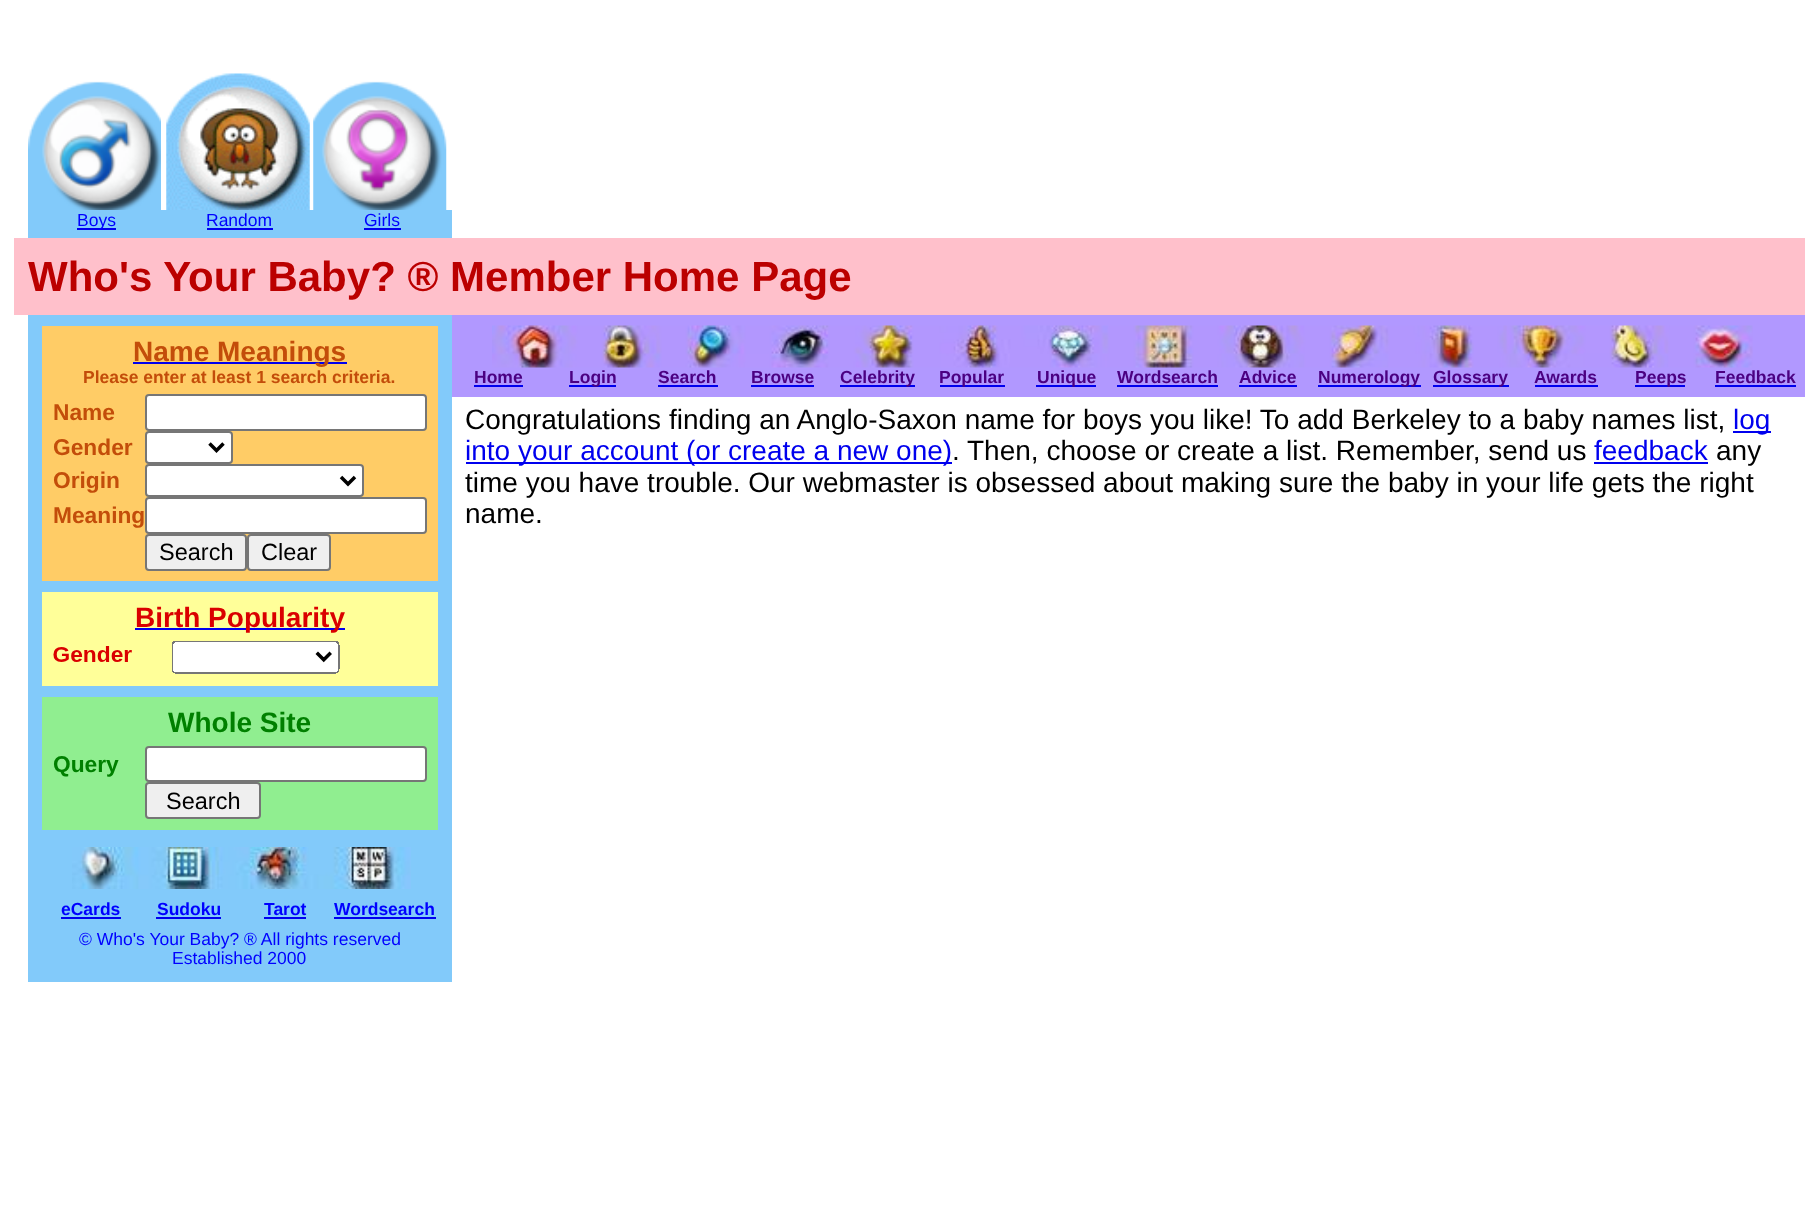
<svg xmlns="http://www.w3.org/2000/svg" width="1805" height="1223">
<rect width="100%" height="100%" fill="#fff"/>
<image x="28" y="81" width="133" height="129" href="media/1.png"/>
<image x="166" y="73" width="144" height="137" href="media/2.png"/>
<image x="313" y="81" width="134" height="129" href="media/3.png"/>
<rect x="28" y="210" width="424" height="28" fill="#82cafa"/>
<rect x="77" y="228" width="39" height="2" fill="#00e"/>
<text x="77" y="226" style="font-family:Liberation Sans;font-size:17.5px;fill:#00f">Boys</text>
<text x="206" y="226" style="font-family:Liberation Sans;font-size:17.5px;fill:#00f">Random</text>
<rect x="207" y="228" width="66" height="2" fill="#00e"/>
<text x="364" y="226" style="font-family:Liberation Sans;font-size:17.5px;fill:#00f">Girls</text>
<rect x="364" y="228" width="37" height="2" fill="#00e"/>
<rect x="14" y="238" width="1791" height="77" fill="#ffc0cb"/>
<text x="28" y="291" style="font-family:Liberation Sans;font-size:42px;font-weight:bold;fill:#b00">Who's Your Baby? ® Member Home Page</text>
<rect x="28" y="315" width="424" height="667" fill="#82cafa"/>
<rect x="452" y="315" width="1353" height="82" fill="#b198ff"/>
<rect x="42" y="326" width="396" height="255" fill="#fc6"/>
<rect x="133" y="362" width="214" height="2" fill="#00e"/>
<text x="133" y="361" style="font-family:Liberation Sans;font-size:28px;font-weight:bold;fill:#c34d0a">Name Meanings</text>
<text x="83" y="383" style="font-family:Liberation Sans;font-size:17.5px;font-weight:bold;fill:#c34d0a">Please enter at least 1 search criteria.</text>
<text x="53" y="420" style="font-family:Liberation Sans;font-size:22.75px;font-weight:bold;fill:#c34d0a">Name</text>
<rect x="146" y="395" width="280" height="35" rx="3" fill="#fff" stroke="#767676" stroke-width="2"/>
<text x="53" y="455" style="font-family:Liberation Sans;font-size:22.75px;font-weight:bold;fill:#c34d0a">Gender</text>
<rect x="146" y="432" width="86" height="31" rx="3" fill="#fff" stroke="#767676" stroke-width="2"/>
<path d="M209.5 443.5l7 7l7-7" fill="none" stroke="#000" stroke-width="3.5"/>
<text x="53" y="488" style="font-family:Liberation Sans;font-size:22.75px;font-weight:bold;fill:#c34d0a">Origin</text>
<rect x="146" y="465" width="217" height="31" rx="3" fill="#fff" stroke="#767676" stroke-width="2"/>
<path d="M341 477l7 7l7-7" fill="none" stroke="#000" stroke-width="3.5"/>
<text x="53" y="523" style="font-family:Liberation Sans;font-size:22.75px;font-weight:bold;fill:#c34d0a">Meaning</text>
<rect x="146" y="498" width="280" height="35" rx="3" fill="#fff" stroke="#767676" stroke-width="2"/>
<rect x="146" y="535" width="100" height="35" rx="3" fill="#efefef" stroke="#767676" stroke-width="2"/>
<text x="159" y="560" style="font-family:Liberation Sans;font-size:23.5px;fill:#000">Search</text>
<rect x="248" y="535" width="82" height="35" rx="3" fill="#efefef" stroke="#767676" stroke-width="2"/>
<text x="261" y="560" style="font-family:Liberation Sans;font-size:23.5px;fill:#000">Clear</text>
<rect x="42" y="592" width="396" height="94" fill="#ff9"/>
<rect x="135" y="628" width="210" height="2" fill="#00e"/>
<text x="135" y="627" style="font-family:Liberation Sans;font-size:28px;font-weight:bold;fill:#da0000">Birth Popularity</text>
<image x="53" y="641" width="287" height="33" href="media/4.png"/>
<rect x="42" y="697" width="396" height="133" fill="#90ee90"/>
<text x="168" y="732" style="font-family:Liberation Sans;font-size:28px;font-weight:bold;fill:#008000">Whole Site</text>
<text x="53" y="772" style="font-family:Liberation Sans;font-size:22.75px;font-weight:bold;fill:#008000">Query</text>
<rect x="146" y="747" width="280" height="34" rx="3" fill="#fff" stroke="#767676" stroke-width="2"/>
<rect x="146" y="783" width="114" height="35" rx="3" fill="#efefef" stroke="#767676" stroke-width="2"/>
<text x="166" y="809" style="font-family:Liberation Sans;font-size:23.5px;fill:#000">Search</text>
<image x="72" y="847" width="339" height="42" href="media/5.png"/>
<text x="61" y="915" style="font-family:Liberation Sans;font-size:17.5px;font-weight:bold;fill:#00f">eCards</text>
<rect x="61" y="917" width="60" height="2" fill="#00e"/>
<text x="157" y="915" style="font-family:Liberation Sans;font-size:17.5px;font-weight:bold;fill:#00f">Sudoku</text>
<rect x="156" y="917" width="65" height="2" fill="#00e"/>
<text x="264" y="915" style="font-family:Liberation Sans;font-size:17.5px;font-weight:bold;fill:#00f">Tarot</text>
<rect x="264" y="917" width="42" height="2" fill="#00e"/>
<text x="334" y="915" style="font-family:Liberation Sans;font-size:17.5px;font-weight:bold;fill:#00f">Wordsearch</text>
<rect x="334" y="917" width="102" height="2" fill="#00e"/>
<text x="79" y="945" style="font-family:Liberation Sans;font-size:17.5px;fill:#00f">© Who's Your Baby? ® All rights reserved</text>
<text x="172" y="964" style="font-family:Liberation Sans;font-size:17.5px;fill:#00f">Established 2000</text>
<image x="492" y="325" width="1261" height="43" href="media/6.png"/>
<text x="474" y="383" style="font-family:Liberation Sans;font-size:17.5px;font-weight:bold;fill:#4b0082">Home</text>
<rect x="474" y="385" width="49" height="2" fill="#00e"/>
<rect x="569" y="385" width="47" height="2" fill="#00e"/>
<text x="569" y="383" style="font-family:Liberation Sans;font-size:17.5px;font-weight:bold;fill:#4b0082">Login</text>
<text x="658" y="383" style="font-family:Liberation Sans;font-size:17.5px;font-weight:bold;fill:#4b0082">Search</text>
<rect x="658" y="385" width="60" height="2" fill="#00e"/>
<text x="751" y="383" style="font-family:Liberation Sans;font-size:17.5px;font-weight:bold;fill:#4b0082">Browse</text>
<rect x="751" y="385" width="63" height="2" fill="#00e"/>
<rect x="840" y="385" width="75" height="2" fill="#00e"/>
<text x="840" y="383" style="font-family:Liberation Sans;font-size:17.5px;font-weight:bold;fill:#4b0082">Celebrity</text>
<rect x="940" y="385" width="65" height="2" fill="#00e"/>
<text x="939" y="383" style="font-family:Liberation Sans;font-size:17.5px;font-weight:bold;fill:#4b0082">Popular</text>
<rect x="1036" y="385" width="60" height="2" fill="#00e"/>
<text x="1037" y="383" style="font-family:Liberation Sans;font-size:17.5px;font-weight:bold;fill:#4b0082">Unique</text>
<text x="1117" y="383" style="font-family:Liberation Sans;font-size:17.5px;font-weight:bold;fill:#4b0082">Wordsearch</text>
<rect x="1117" y="385" width="101" height="2" fill="#00e"/>
<text x="1239" y="383" style="font-family:Liberation Sans;font-size:17.5px;font-weight:bold;fill:#4b0082">Advice</text>
<rect x="1239" y="385" width="58" height="2" fill="#00e"/>
<rect x="1318" y="385" width="103" height="2" fill="#00e"/>
<text x="1318" y="383" style="font-family:Liberation Sans;font-size:17.5px;font-weight:bold;fill:#4b0082">Numerology</text>
<rect x="1433" y="385" width="76" height="2" fill="#00e"/>
<text x="1433" y="383" style="font-family:Liberation Sans;font-size:17.5px;font-weight:bold;fill:#4b0082">Glossary</text>
<text x="1534" y="383" style="font-family:Liberation Sans;font-size:17.5px;font-weight:bold;fill:#4b0082">Awards</text>
<rect x="1535" y="385" width="63" height="2" fill="#00e"/>
<rect x="1635" y="385" width="50" height="2" fill="#00e"/>
<text x="1635" y="383" style="font-family:Liberation Sans;font-size:17.5px;font-weight:bold;fill:#4b0082">Peeps</text>
<text x="1715" y="383" style="font-family:Liberation Sans;font-size:17.5px;font-weight:bold;fill:#4b0082">Feedback</text>
<rect x="1715" y="385" width="81" height="2" fill="#00e"/>
<text x="465" y="429" style="font-family:Liberation Sans;font-size:28px;fill:#000">Congratulations finding an Anglo-Saxon name for boys you like! To add Berkeley to a baby names list,</text>
<rect x="1733" y="431" width="38" height="2" fill="#00e"/>
<text x="1733" y="429" style="font-family:Liberation Sans;font-size:28px;fill:#00e">log</text>
<rect x="466" y="462" width="486" height="2" fill="#00e"/>
<text x="465" y="460" style="font-family:Liberation Sans;font-size:28px;fill:#00e">into your account (or create a new one)</text>
<text x="952" y="460" style="font-family:Liberation Sans;font-size:28px;fill:#000">.</text>
<text x="967" y="460" style="font-family:Liberation Sans;font-size:28px;fill:#000">Then, choose or create a list. Remember, send us</text>
<text x="1594" y="460" style="font-family:Liberation Sans;font-size:28px;fill:#00e">feedback</text>
<text x="1716" y="460" style="font-family:Liberation Sans;font-size:28px;fill:#000">any</text>
<rect x="1594" y="462" width="114" height="2" fill="#00e"/>
<text x="465" y="492" style="font-family:Liberation Sans;font-size:28px;fill:#000">time you have trouble. Our webmaster is obsessed about making sure the baby in your life gets the right</text>
<text x="465" y="523" style="font-family:Liberation Sans;font-size:28px;fill:#000">name.</text>
</svg>
